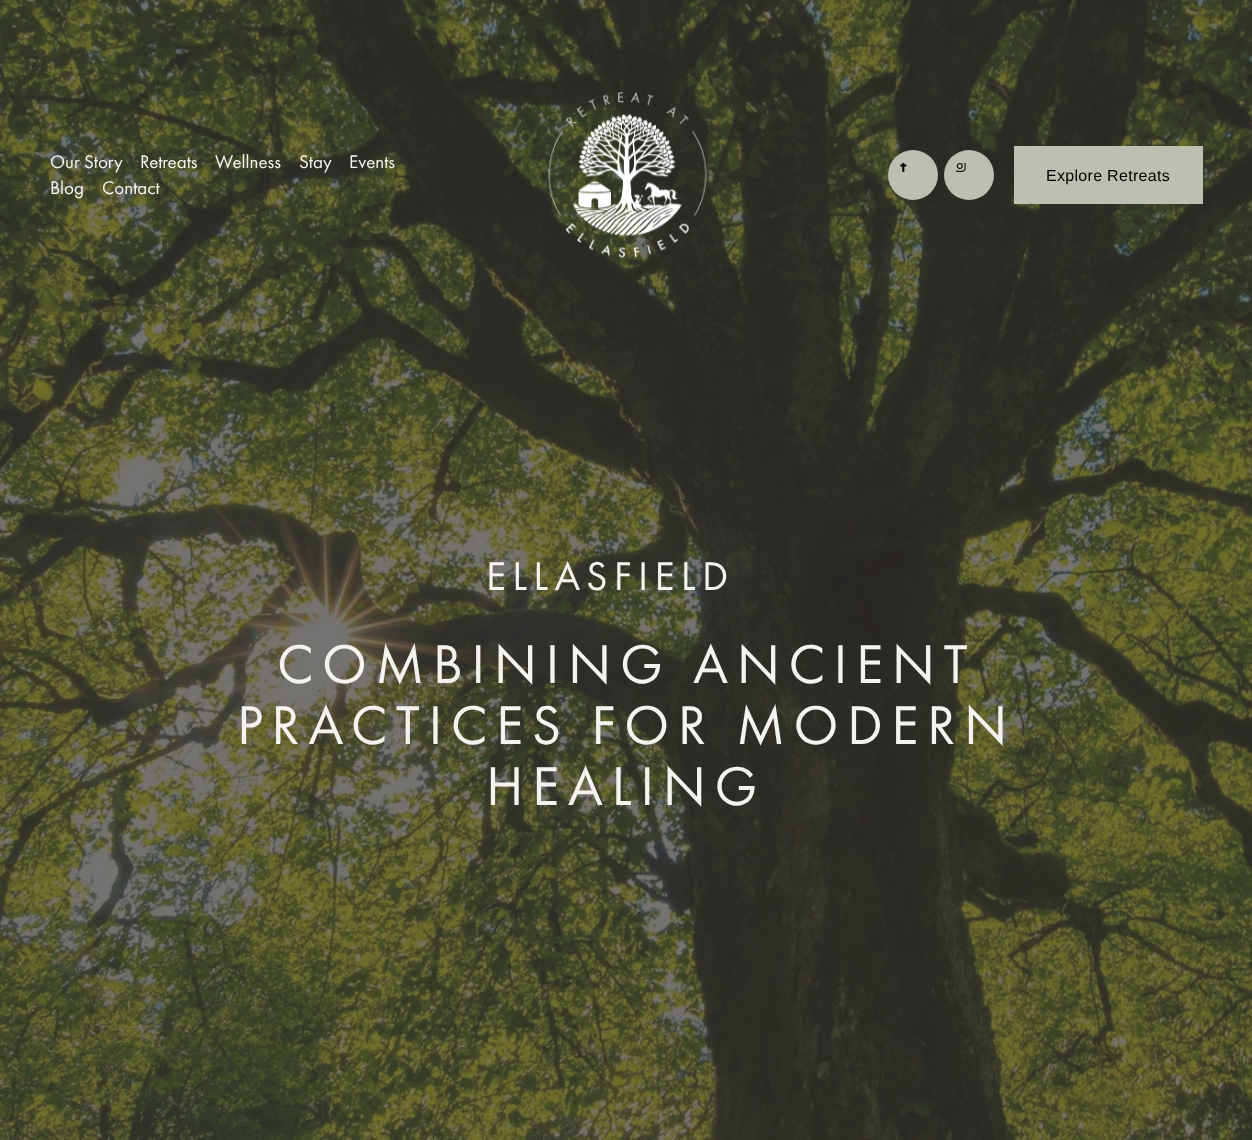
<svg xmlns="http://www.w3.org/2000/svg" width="1252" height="1140">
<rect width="100%" height="100%" fill="#fff"/>
<image x="0" y="0" width="1252" height="1140" href="media/4.png"/>
<text x="50" y="168" style="font-family:Futura PT;font-size:19px;fill:#f5f3ef">Our Story</text>
<text x="140" y="168" style="font-family:Futura PT;font-size:19px;fill:#f5f3ef">Retreats</text>
<text x="215" y="168" style="font-family:Futura PT;font-size:19px;fill:#f5f3ef">Wellness</text>
<text x="299" y="168" style="font-family:Futura PT;font-size:19px;fill:#f5f3ef">Stay</text>
<text x="349" y="168" style="font-family:Futura PT;font-size:19px;fill:#f5f3ef">Events</text>
<text x="50" y="194" style="font-family:Futura PT;font-size:19px;fill:#f5f3ef">Blog</text>
<text x="102" y="194" style="font-family:Futura PT;font-size:19px;fill:#f5f3ef">Contact</text>
<image x="548" y="92" width="159" height="167" href="media/1.png"/>
<circle cx="913" cy="175" r="25" fill="#bdbfb3"/>
<image x="900" y="163" width="7" height="9" href="media/2.png"/>
<circle cx="969" cy="175" r="25" fill="#bdbfb3"/>
<image x="956" y="163" width="10" height="9" href="media/3.png"/>
<rect x="1014" y="146" width="189" height="58" fill="#bdbfb3"/>
<text x="1046" y="181" style="font-family:Liberation Sans;font-size:16px;letter-spacing:0.3px;fill:#000">Explore Retreats</text>
<text x="486" y="590" style="font-family:Futura PT;font-size:41.5px;letter-spacing:6.25px;fill:#f5f3ef">ELLASFIELD</text>
<text x="277" y="683" style="font-family:Futura PT;font-size:56.6px;letter-spacing:8.5px;fill:#f5f3ef">COMBINING ANCIENT</text>
<text x="237" y="744" style="font-family:Futura PT;font-size:56.6px;letter-spacing:8.5px;fill:#f5f3ef">PRACTICES FOR MODERN</text>
<text x="486" y="805" style="font-family:Futura PT;font-size:56.6px;letter-spacing:8.5px;fill:#f5f3ef">HEALING</text>
</svg>
